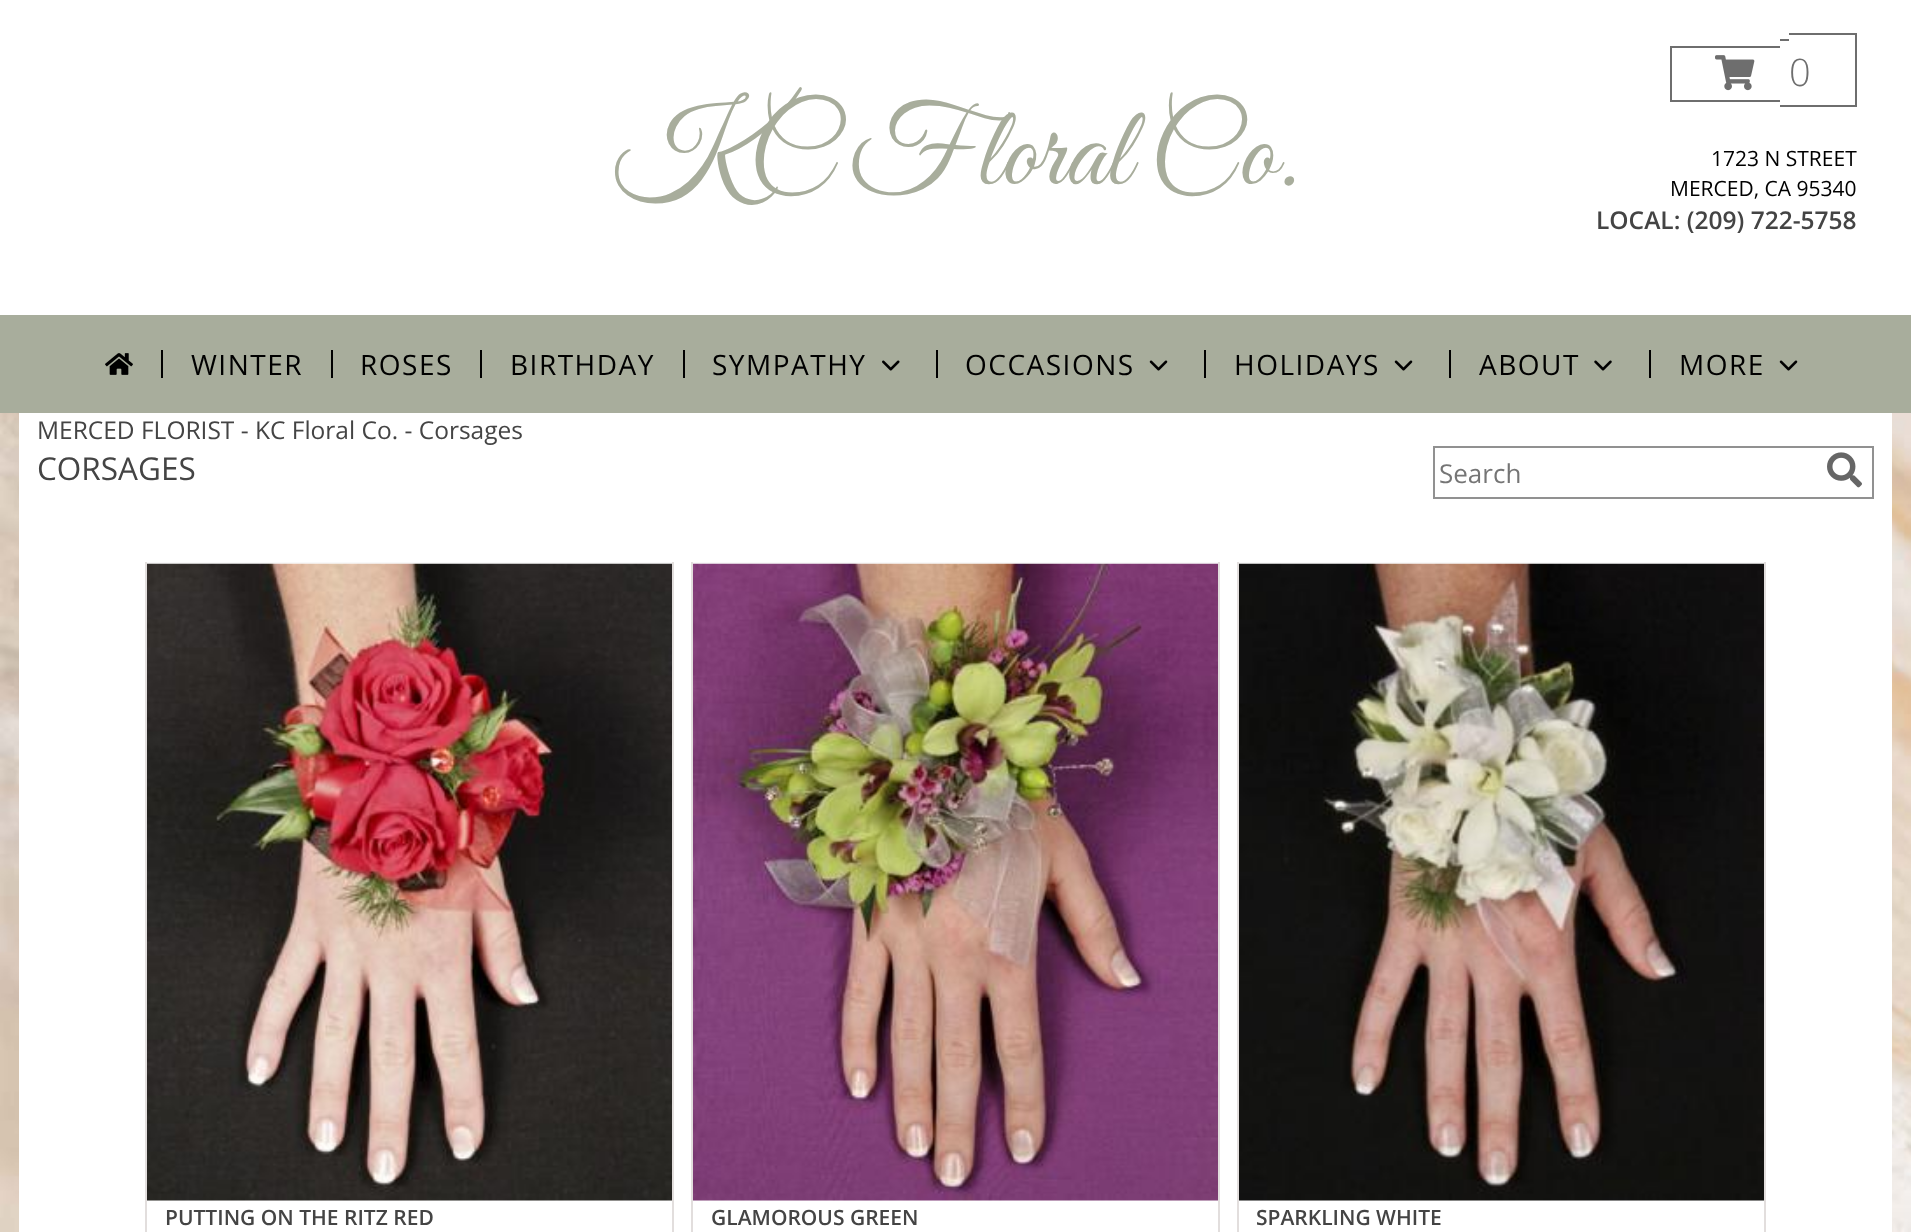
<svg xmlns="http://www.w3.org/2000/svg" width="1911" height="1232">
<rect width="100%" height="100%" fill="#fff"/>
<image x="0" y="413" width="1911" height="819" href="media/1.png"/>
<rect x="19" y="413" width="1873" height="819" fill="#fff"/>
<text x="612" y="184" style="font-family:Great Vibes;font-size:113.75px;fill:#a8ad9c">KC Floral Co.</text>
<rect x="1670" y="46" width="110" height="2" fill="#6e6e6e"/>
<rect x="1670" y="100" width="110" height="2" fill="#6e6e6e"/>
<rect x="1670" y="46" width="2" height="56" fill="#6e6e6e"/>
<rect x="1780" y="39" width="9" height="2" fill="#6e6e6e"/>
<rect x="1780" y="105" width="9" height="2" fill="#6e6e6e"/>
<rect x="1789" y="33" width="68" height="2" fill="#6e6e6e"/>
<rect x="1855" y="33" width="2" height="74" fill="#6e6e6e"/>
<rect x="1789" y="105" width="68" height="2" fill="#6e6e6e"/>
<image x="1715" y="55" width="40" height="36" href="media/2.png"/>
<text x="1789" y="86" style="font-family:Open Sans;font-size:38px;font-weight:300;fill:#6e6e6e">0</text>
<text x="1711" y="166" style="font-family:Open Sans;font-size:21px;fill:#000">1723 N STREET</text>
<text x="1670" y="196" style="font-family:Open Sans;font-size:21px;fill:#000">MERCED, CA 95340</text>
<text x="1596" y="229" style="font-family:Open Sans;font-size:24.5px;font-weight:600;fill:#444">LOCAL: (209) 722-5758</text>
<rect y="315" width="1911" height="98" fill="#a8ad9c"/>
<image x="105" y="353" width="28" height="22" href="media/3.png"/>
<rect x="161" y="350" width="2" height="28" fill="#000"/>
<text x="191" y="375" style="font-family:Open Sans;font-size:28px;letter-spacing:1.5px;fill:#000">WINTER</text>
<rect x="331" y="350" width="2" height="28" fill="#000"/>
<text x="360" y="375" style="font-family:Open Sans;font-size:28px;letter-spacing:1.5px;fill:#000">ROSES</text>
<rect x="480" y="350" width="2" height="28" fill="#000"/>
<text x="510" y="375" style="font-family:Open Sans;font-size:28px;letter-spacing:1.5px;fill:#000">BIRTHDAY</text>
<rect x="683" y="350" width="2" height="28" fill="#000"/>
<text x="712" y="375" style="font-family:Open Sans;font-size:28px;letter-spacing:1.5px;fill:#000">SYMPATHY</text>
<image x="882" y="360" width="18" height="11" href="media/4.png"/>
<rect x="936" y="350" width="2" height="28" fill="#000"/>
<text x="965" y="375" style="font-family:Open Sans;font-size:28px;letter-spacing:1.5px;fill:#000">OCCASIONS</text>
<image x="1149" y="360" width="19" height="11" href="media/5.png"/>
<rect x="1204" y="350" width="2" height="28" fill="#000"/>
<text x="1234" y="375" style="font-family:Open Sans;font-size:28px;letter-spacing:1.5px;fill:#000">HOLIDAYS</text>
<image x="1394" y="360" width="19" height="11" href="media/5.png"/>
<rect x="1449" y="350" width="2" height="28" fill="#000"/>
<text x="1479" y="375" style="font-family:Open Sans;font-size:28px;letter-spacing:1.5px;fill:#000">ABOUT</text>
<image x="1594" y="360" width="18" height="11" href="media/6.png"/>
<rect x="1649" y="350" width="2" height="28" fill="#000"/>
<text x="1679" y="375" style="font-family:Open Sans;font-size:28px;letter-spacing:1.5px;fill:#000">MORE</text>
<image x="1779" y="360" width="19" height="11" href="media/5.png"/>
<text x="37" y="439" style="font-family:Open Sans;font-size:24.5px;fill:#444">MERCED FLORIST - KC Floral Co. - Corsages</text>
<text x="37" y="480" style="font-family:Open Sans;font-size:31.5px;fill:#444">CORSAGES</text>
<rect x="1434" y="447" width="439" height="51" fill="none" stroke="#919191" stroke-width="2"/>
<text x="1439" y="483" style="font-family:Open Sans;font-size:26px;fill:#757575">Search</text>
<image x="1827" y="452" width="35" height="36" href="media/7.png"/>
<rect x="145" y="562" width="529" height="2" fill="#f9f9f9"/>
<rect x="672" y="562" width="2" height="670" fill="#e2dedd"/>
<rect x="145" y="562" width="2" height="670" fill="#e2dedd"/>
<image x="147" y="563" width="525" height="638" href="media/8.png"/>
<text x="165" y="1225" style="font-family:Open Sans;font-size:21px;font-weight:600;fill:#444">PUTTING ON THE RITZ RED</text>
<rect x="691" y="562" width="529" height="2" fill="#f9f9f9"/>
<rect x="1218" y="562" width="2" height="670" fill="#e2dedd"/>
<rect x="691" y="562" width="2" height="670" fill="#e2dedd"/>
<image x="693" y="563" width="525" height="638" href="media/9.png"/>
<text x="711" y="1225" style="font-family:Open Sans;font-size:21px;font-weight:600;fill:#444">GLAMOROUS GREEN</text>
<rect x="1237" y="562" width="529" height="2" fill="#f9f9f9"/>
<rect x="1764" y="562" width="2" height="670" fill="#e2dedd"/>
<rect x="1237" y="562" width="2" height="670" fill="#e2dedd"/>
<image x="1239" y="563" width="525" height="638" href="media/10.png"/>
<text x="1256" y="1225" style="font-family:Open Sans;font-size:21px;font-weight:600;fill:#444">SPARKLING WHITE</text>
</svg>
